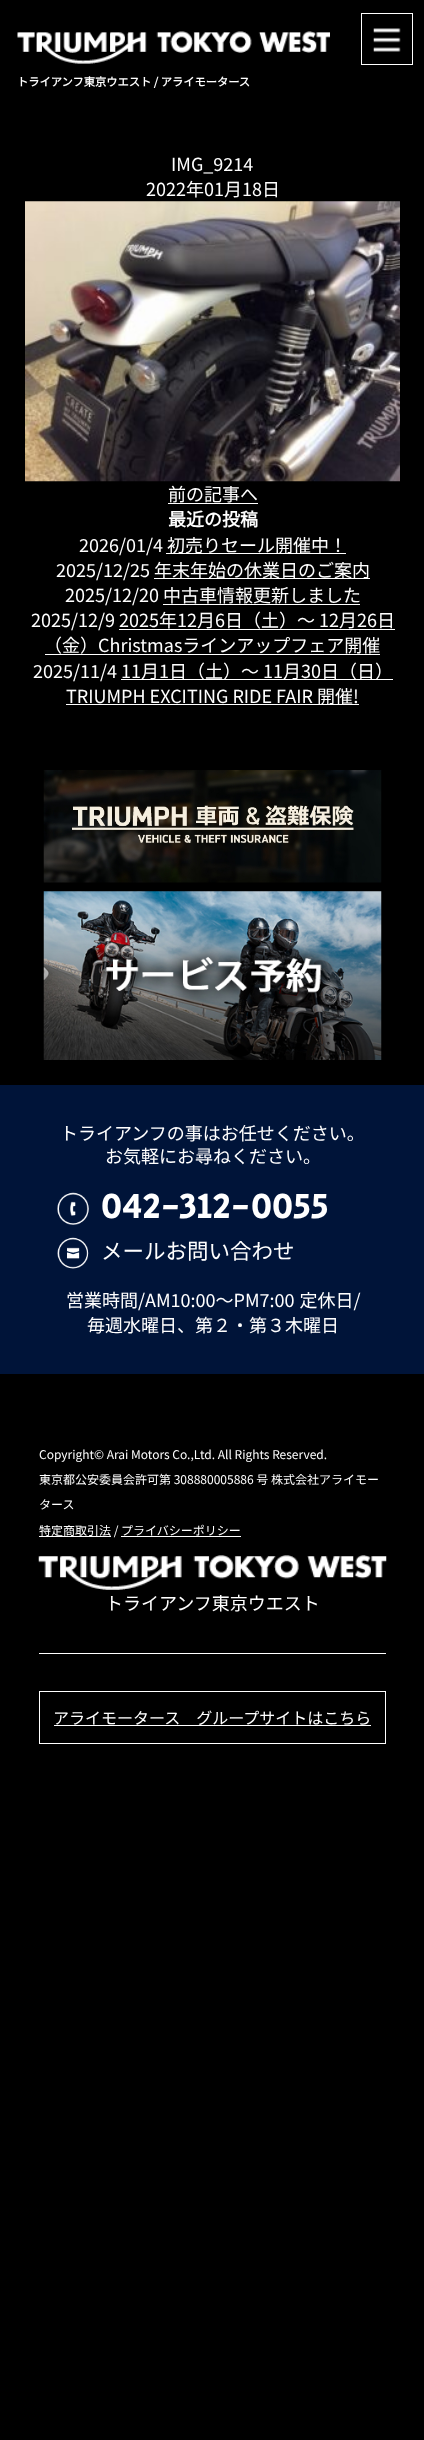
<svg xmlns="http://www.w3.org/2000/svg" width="424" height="2440">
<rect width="100%" height="100%" fill="#000"/>
<rect x="361.5" y="13.5" width="51" height="51" fill="none" stroke="#fff"/>
<image x="373" y="28" width="28" height="24" href="media/1.png"/>
<image x="17" y="31" width="313" height="33" href="media/2.png"/>
<text x="17" y="86" style="font-family:Noto Sans JP;font-size:11.25px;font-weight:bold;fill:#fff">トライアンフ東京ウエスト / アライモータース</text>
<text x="171" y="171" style="font-family:Noto Sans JP;font-size:18px;font-weight:100;fill:#fff">IMG_9214</text>
<text x="146" y="196" style="font-family:Noto Sans JP;font-size:18px;font-weight:100;fill:#fff">2022年01月18日</text>
<image x="25" y="201" width="375" height="281" href="media/3.png"/>
<text x="168" y="501" style="font-family:Noto Sans JP;font-size:18px;font-weight:100;fill:#fff">前の記事へ</text>
<rect x="168" y="503" width="90" height="1" fill="#fff"/>
<text x="168" y="526" style="font-family:Noto Sans JP;font-size:18px;font-weight:bold;fill:#fff">最近の投稿</text>
<text x="79" y="552" style="font-family:Noto Sans JP;font-size:18px;font-weight:100;fill:#fff">2026/01/4</text>
<rect x="166" y="553" width="180" height="1" fill="#fff"/>
<text x="167" y="552" style="font-family:Noto Sans JP;font-size:18px;font-weight:100;fill:#fff">初売りセール開催中！</text>
<text x="56" y="577" style="font-family:Noto Sans JP;font-size:18px;font-weight:100;fill:#fff">2025/12/25</text>
<rect x="154" y="578" width="216" height="1" fill="#fff"/>
<text x="154" y="577" style="font-family:Noto Sans JP;font-size:18px;font-weight:100;fill:#fff">年末年始の休業日のご案内</text>
<text x="65" y="602" style="font-family:Noto Sans JP;font-size:18px;font-weight:100;fill:#fff">2025/12/20 中古車情報更新しました</text>
<rect x="163" y="604" width="197" height="1" fill="#fff"/>
<text x="31" y="627" style="font-family:Noto Sans JP;font-size:18px;font-weight:100;fill:#fff">2025/12/9 2025年12月6日（土）〜 12月26日</text>
<text x="44" y="652" style="font-family:Noto Sans JP;font-size:18px;font-weight:100;fill:#fff">（金）Christmasラインアップフェア開催</text>
<rect x="119" y="629" width="276" height="1" fill="#fff"/>
<rect x="45" y="654" width="335" height="1" fill="#fff"/>
<text x="33" y="678" style="font-family:Noto Sans JP;font-size:18px;font-weight:100;fill:#fff">2025/11/4</text>
<rect x="121" y="679" width="272" height="1" fill="#fff"/>
<text x="121" y="678" style="font-family:Noto Sans JP;font-size:18px;font-weight:100;fill:#fff">11月1日（土）〜 11月30日（日）</text>
<rect x="66" y="704" width="293" height="1" fill="#fff"/>
<text x="66" y="703" style="font-family:Noto Sans JP;font-size:18px;font-weight:100;fill:#fff">TRIUMPH EXCITING RIDE FAIR 開催!</text>
<image x="43" y="770" width="339" height="113" href="media/4.png"/>
<image x="43" y="891" width="339" height="169" href="media/5.png"/>
<rect y="1085" width="424" height="289" fill="#001439"/>
<text x="60" y="1140" style="font-family:Noto Sans JP;font-size:18px;font-weight:100;fill:#fff">トライアンフの事はお任せください。</text>
<text x="105" y="1163" style="font-family:Noto Sans JP;font-size:18px;font-weight:100;fill:#fff">お気軽にお尋ねください。</text>
<image x="57" y="1192" width="32" height="33" href="media/6.png"/>
<text x="101" y="1218" style="font-family:Secular One;font-size:36px;fill:#fff">042-312-0055</text>
<image x="57" y="1237" width="32" height="32" href="media/7.png"/>
<text x="101" y="1259" style="font-family:Noto Sans JP;font-size:21.5px;font-weight:100;fill:#fff">メールお問い合わせ</text>
<text x="66" y="1307" word-spacing="1" style="font-family:Noto Sans JP;font-size:18px;font-weight:100;fill:#fff">営業時間/AM10:00～PM7:00 定休日/</text>
<text x="87" y="1332" style="font-family:Noto Sans JP;font-size:18px;font-weight:100;fill:#fff">毎週水曜日、第２・第３木曜日</text>
<text x="39" y="1459" style="font-family:Noto Sans JP;font-size:12px;font-weight:100;fill:#fff">Copyright© Arai Motors Co.,Ltd. All Rights Reserved.</text>
<text x="39" y="1484" style="font-family:Noto Sans JP;font-size:12px;font-weight:100;fill:#fff">東京都公安委員会許可第 308880005886 号 株式会社アライモー</text>
<text x="39" y="1509" style="font-family:Noto Sans JP;font-size:12px;font-weight:100;fill:#fff">タース</text>
<rect x="39" y="1536" width="72" height="1" fill="#fff"/>
<text x="39" y="1535" style="font-family:Noto Sans JP;font-size:12px;font-weight:100;fill:#fff">特定商取引法 / プライバシーポリシー</text>
<rect x="121" y="1536" width="120" height="1" fill="#fff"/>
<image x="38" y="1555" width="349" height="35" href="media/8.png"/>
<text x="105" y="1610" style="font-family:Noto Sans JP;font-size:18px;font-weight:100;fill:#fff">トライアンフ東京ウエスト</text>
<rect x="39" y="1653" width="347" height="1" fill="#fff"/>
<rect x="39.5" y="1691.5" width="346" height="52" fill="none" stroke="#fff"/>
<rect x="54" y="1725" width="317" height="1" fill="#fff"/>
<text x="53" y="1724" style="font-family:Noto Sans JP;font-size:16px;font-weight:100;fill:#fff">アライモータース　グループサイトはこちら</text>
</svg>
